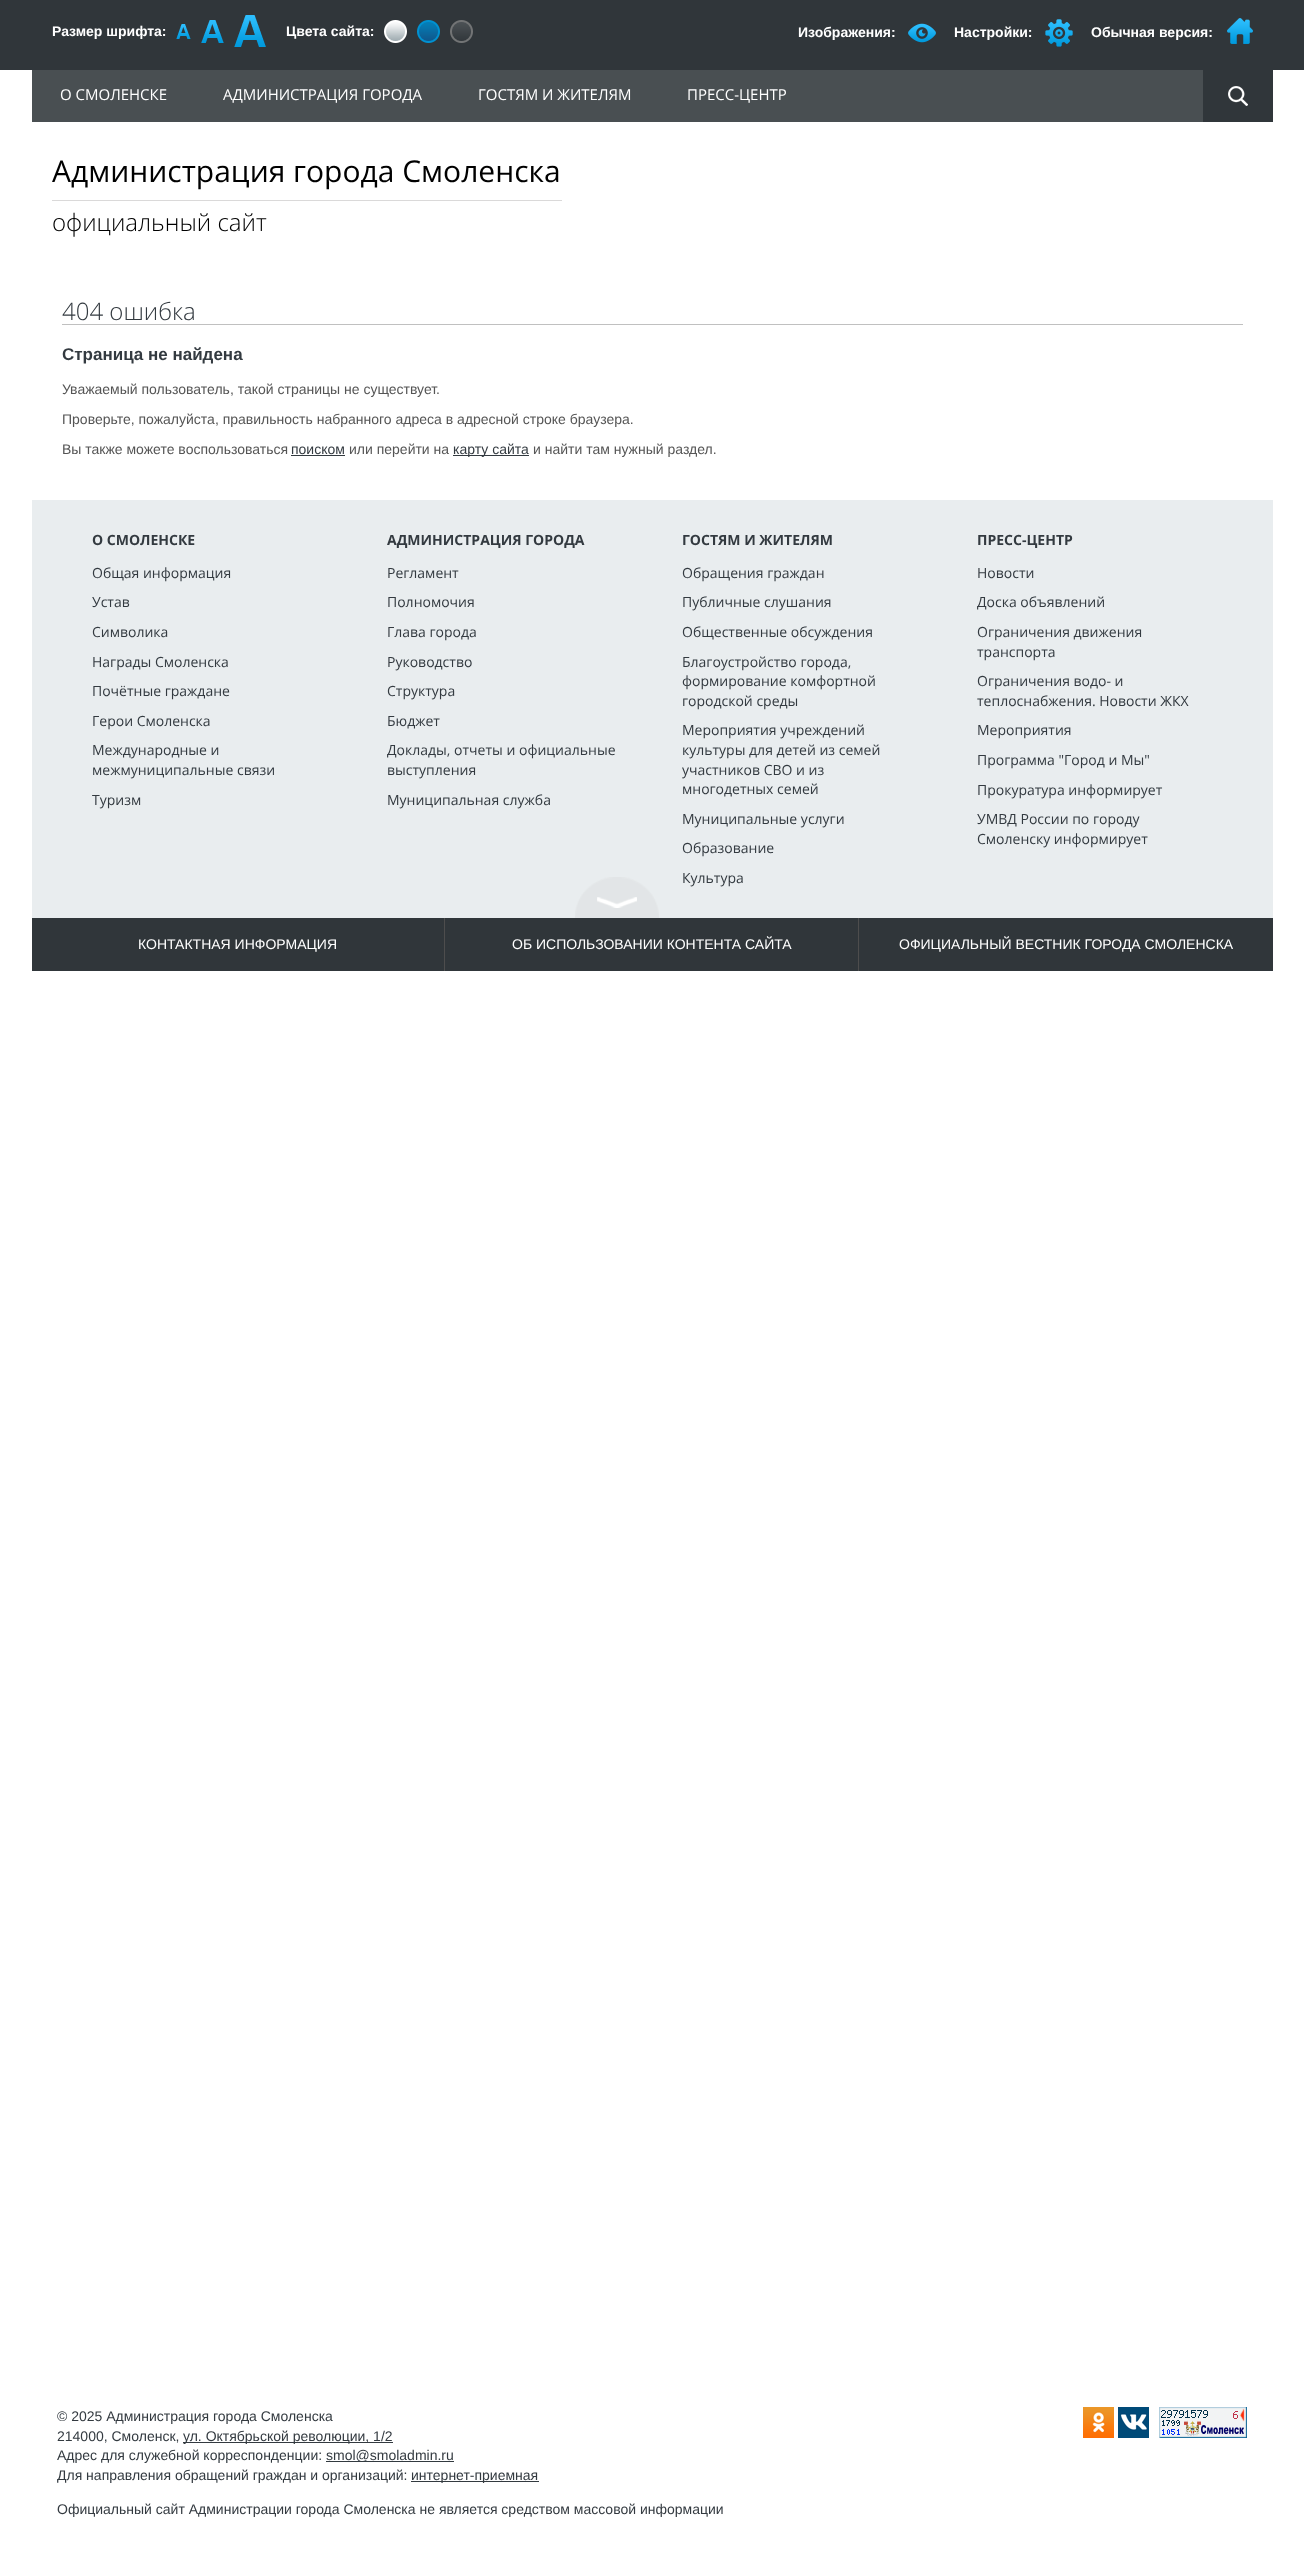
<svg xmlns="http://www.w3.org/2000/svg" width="1304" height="2557">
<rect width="100%" height="100%" fill="#fff"/>
<rect width="1304" height="70" fill="#30363a"/>
<text x="52" y="36" style="font-family:Liberation Sans;font-size:14px;font-weight:bold;fill:#fff">Размер шрифта:</text>
<image x="176" y="24" width="15" height="15" href="media/1.png"/>
<image x="201" y="20" width="23" height="23" href="media/2.png"/>
<image x="234" y="15" width="32" height="32" href="media/3.png"/>
<text x="286" y="36" style="font-family:Liberation Sans;font-size:14px;font-weight:bold;fill:#fff">Цвета сайта:</text>
<image x="384" y="20" width="23" height="23" href="media/4.png"/>
<image x="417" y="20" width="23" height="23" href="media/5.png"/>
<image x="450" y="20" width="23" height="23" href="media/6.png"/>
<text x="798" y="37" style="font-family:Liberation Sans;font-size:14px;font-weight:bold;fill:#fff">Изображения:</text>
<image x="908" y="23" width="28" height="20" href="media/7.png"/>
<text x="954" y="37" style="font-family:Liberation Sans;font-size:14px;font-weight:bold;fill:#fff">Настройки:</text>
<image x="1045" y="19" width="28" height="28" href="media/8.png"/>
<text x="1091" y="37" style="font-family:Liberation Sans;font-size:14px;font-weight:bold;fill:#fff">Обычная версия:</text>
<image x="1227" y="18" width="26" height="26" href="media/9.png"/>
<rect x="32" y="70" width="1171" height="52" fill="#494f52"/>
<text x="60" y="100" style="font-family:Open Sans;font-size:15px;fill:#fff">О СМОЛЕНСКЕ</text>
<text x="223" y="100" style="font-family:Open Sans;font-size:15px;fill:#fff">АДМИНИСТРАЦИЯ ГОРОДА</text>
<text x="478" y="100" style="font-family:Open Sans;font-size:15px;fill:#fff">ГОСТЯМ И ЖИТЕЛЯМ</text>
<text x="687" y="100" style="font-family:Open Sans;font-size:15px;fill:#fff">ПРЕСС-ЦЕНТР</text>
<rect x="1203" y="70" width="70" height="52" fill="#30363a"/>
<image x="1228" y="86" width="20" height="20" href="media/10.png"/>
<rect x="52" y="200" width="510" height="1" fill="#dad9d9"/>
<text x="52" y="182" style="font-family:Open Sans;font-size:30px;fill:#000">Администрация города Смоленска</text>
<text x="52" y="231" style="font-family:Open Sans;font-size:24px;font-weight:300;fill:#000">официальный сайт</text>
<rect x="62" y="324" width="1181" height="1" fill="#c0c0c0"/>
<text x="62" y="320" style="font-family:Open Sans;font-size:24px;font-weight:300;fill:#333a40">404 ошибка</text>
<text x="62" y="360" style="font-family:Liberation Sans;font-size:17px;font-weight:bold;fill:#333a40">Страница не найдена</text>
<text x="62" y="394" style="font-family:Liberation Sans;font-size:14px;fill:#555">Уважаемый пользователь, такой страницы не существует.</text>
<text x="62" y="424" style="font-family:Liberation Sans;font-size:14px;fill:#555">Проверьте, пожалуйста, правильность набранного адреса в адресной строке браузера.</text>
<text x="62" y="454" style="font-family:Liberation Sans;font-size:14px;fill:#555">Вы также можете воспользоваться</text>
<text x="291" y="454" style="font-family:Liberation Sans;font-size:14px;fill:#333a40">поиском</text>
<rect x="291" y="455" width="54" height="1" fill="#333a40"/>
<text x="349" y="454" style="font-family:Liberation Sans;font-size:14px;fill:#555">или перейти на</text>
<rect x="453" y="455" width="76" height="1" fill="#333a40"/>
<text x="453" y="454" style="font-family:Liberation Sans;font-size:14px;fill:#333a40">карту сайта</text>
<text x="533" y="454" style="font-family:Liberation Sans;font-size:14px;fill:#555">и найти там нужный раздел.</text>
<rect x="32" y="500" width="1241" height="418" fill="#e9edef"/>
<text x="92" y="545" style="font-family:Open Sans;font-size:14px;font-weight:bold;fill:#333a40">О СМОЛЕНСКЕ</text>
<text x="92" y="578" style="font-family:Open Sans;font-size:14px;fill:#333a40">Общая информация</text>
<text x="92" y="607" style="font-family:Open Sans;font-size:14px;fill:#333a40">Устав</text>
<text x="92" y="637" style="font-family:Open Sans;font-size:14px;fill:#333a40">Символика</text>
<text x="92" y="667" style="font-family:Open Sans;font-size:14px;fill:#333a40">Награды Смоленска</text>
<text x="92" y="696" style="font-family:Open Sans;font-size:14px;fill:#333a40">Почётные граждане</text>
<text x="92" y="726" style="font-family:Open Sans;font-size:14px;fill:#333a40">Герои Смоленска</text>
<text x="92" y="755" style="font-family:Open Sans;font-size:14px;fill:#333a40">Международные и</text>
<text x="92" y="775" style="font-family:Open Sans;font-size:14px;fill:#333a40">межмуниципальные связи</text>
<text x="92" y="805" style="font-family:Open Sans;font-size:14px;fill:#333a40">Туризм</text>
<text x="387" y="545" style="font-family:Open Sans;font-size:14px;font-weight:bold;fill:#333a40">АДМИНИСТРАЦИЯ ГОРОДА</text>
<text x="387" y="578" style="font-family:Open Sans;font-size:14px;fill:#333a40">Регламент</text>
<text x="387" y="607" style="font-family:Open Sans;font-size:14px;fill:#333a40">Полномочия</text>
<text x="387" y="637" style="font-family:Open Sans;font-size:14px;fill:#333a40">Глава города</text>
<text x="387" y="667" style="font-family:Open Sans;font-size:14px;fill:#333a40">Руководство</text>
<text x="387" y="696" style="font-family:Open Sans;font-size:14px;fill:#333a40">Структура</text>
<text x="387" y="726" style="font-family:Open Sans;font-size:14px;fill:#333a40">Бюджет</text>
<text x="387" y="755" style="font-family:Open Sans;font-size:14px;fill:#333a40">Доклады, отчеты и официальные</text>
<text x="387" y="775" style="font-family:Open Sans;font-size:14px;fill:#333a40">выступления</text>
<text x="387" y="805" style="font-family:Open Sans;font-size:14px;fill:#333a40">Муниципальная служба</text>
<text x="682" y="545" style="font-family:Open Sans;font-size:14px;font-weight:bold;fill:#333a40">ГОСТЯМ И ЖИТЕЛЯМ</text>
<text x="682" y="578" style="font-family:Open Sans;font-size:14px;fill:#333a40">Обращения граждан</text>
<text x="682" y="607" style="font-family:Open Sans;font-size:14px;fill:#333a40">Публичные слушания</text>
<text x="682" y="637" style="font-family:Open Sans;font-size:14px;fill:#333a40">Общественные обсуждения</text>
<text x="682" y="667" style="font-family:Open Sans;font-size:14px;fill:#333a40">Благоустройство города,</text>
<text x="682" y="686" style="font-family:Open Sans;font-size:14px;fill:#333a40">формирование комфортной</text>
<text x="682" y="706" style="font-family:Open Sans;font-size:14px;fill:#333a40">городской среды</text>
<text x="682" y="735" style="font-family:Open Sans;font-size:14px;fill:#333a40">Мероприятия учреждений</text>
<text x="682" y="755" style="font-family:Open Sans;font-size:14px;fill:#333a40">культуры для детей из семей</text>
<text x="682" y="775" style="font-family:Open Sans;font-size:14px;fill:#333a40">участников СВО и из</text>
<text x="682" y="794" style="font-family:Open Sans;font-size:14px;fill:#333a40">многодетных семей</text>
<text x="682" y="824" style="font-family:Open Sans;font-size:14px;fill:#333a40">Муниципальные услуги</text>
<text x="682" y="853" style="font-family:Open Sans;font-size:14px;fill:#333a40">Образование</text>
<text x="682" y="883" style="font-family:Open Sans;font-size:14px;fill:#333a40">Культура</text>
<text x="977" y="545" style="font-family:Open Sans;font-size:14px;font-weight:bold;fill:#333a40">ПРЕСС-ЦЕНТР</text>
<text x="977" y="578" style="font-family:Open Sans;font-size:14px;fill:#333a40">Новости</text>
<text x="977" y="607" style="font-family:Open Sans;font-size:14px;fill:#333a40">Доска объявлений</text>
<text x="977" y="637" style="font-family:Open Sans;font-size:14px;fill:#333a40">Ограничения движения</text>
<text x="977" y="657" style="font-family:Open Sans;font-size:14px;fill:#333a40">транспорта</text>
<text x="977" y="686" style="font-family:Open Sans;font-size:14px;fill:#333a40">Ограничения водо- и</text>
<text x="977" y="706" style="font-family:Open Sans;font-size:14px;fill:#333a40">теплоснабжения. Новости ЖКХ</text>
<text x="977" y="735" style="font-family:Open Sans;font-size:14px;fill:#333a40">Мероприятия</text>
<text x="977" y="765" style="font-family:Open Sans;font-size:14px;fill:#333a40">Программа "Город и Мы"</text>
<text x="977" y="795" style="font-family:Open Sans;font-size:14px;fill:#333a40">Прокуратура информирует</text>
<text x="977" y="824" style="font-family:Open Sans;font-size:14px;fill:#333a40">УМВД России по городу</text>
<text x="977" y="844" style="font-family:Open Sans;font-size:14px;fill:#333a40">Смоленску информирует</text>
<image x="575" y="877" width="84" height="41" href="media/11.png"/>
<rect x="32" y="918" width="412" height="53" fill="#30363a"/>
<rect x="444" y="918" width="1" height="53" fill="#4d4d4d"/>
<text x="138" y="949" style="font-family:Liberation Sans;font-size:14px;fill:#fff">КОНТАКТНАЯ ИНФОРМАЦИЯ</text>
<rect x="445" y="918" width="413" height="53" fill="#30363a"/>
<rect x="858" y="918" width="1" height="53" fill="#4d4d4d"/>
<text x="512" y="949" style="font-family:Liberation Sans;font-size:14px;fill:#fff">ОБ ИСПОЛЬЗОВАНИИ КОНТЕНТА САЙТА</text>
<rect x="859" y="918" width="414" height="53" fill="#30363a"/>
<text x="899" y="949" style="font-family:Liberation Sans;font-size:14px;fill:#fff">ОФИЦИАЛЬНЫЙ ВЕСТНИК ГОРОДА СМОЛЕНСКА</text>
<text x="57" y="2421" style="font-family:Liberation Sans;font-size:14px;fill:#333a40">© 2025 Администрация города Смоленска</text>
<text x="57" y="2441" style="font-family:Liberation Sans;font-size:14px;fill:#333a40">214000, Смоленск,</text>
<rect x="183" y="2442" width="210" height="1" fill="#333a40"/>
<text x="183" y="2441" style="font-family:Liberation Sans;font-size:14px;fill:#333a40">ул. Октябрьской революции, 1/2</text>
<text x="57" y="2460" style="font-family:Liberation Sans;font-size:14px;fill:#333a40">Адрес для служебной корреспонденции:</text>
<rect x="326" y="2461" width="128" height="1" fill="#333a40"/>
<text x="326" y="2460" style="font-family:Liberation Sans;font-size:14px;fill:#333a40">smol@smoladmin.ru</text>
<text x="57" y="2480" style="font-family:Liberation Sans;font-size:14px;fill:#333a40">Для направления обращений граждан и организаций:</text>
<rect x="411" y="2481" width="128" height="1" fill="#333a40"/>
<text x="411" y="2480" style="font-family:Liberation Sans;font-size:14px;fill:#333a40">интернет-приемная</text>
<text x="57" y="2514" style="font-family:Liberation Sans;font-size:14px;fill:#333a40">Официальный сайт Администрации города Смоленска не является средством массовой информации</text>
<image x="1083" y="2407" width="31" height="31" href="media/12.png"/>
<image x="1118" y="2407" width="31" height="31" href="media/13.png"/>
<image x="1159" y="2407" width="88" height="31" href="media/14.png"/>
</svg>
